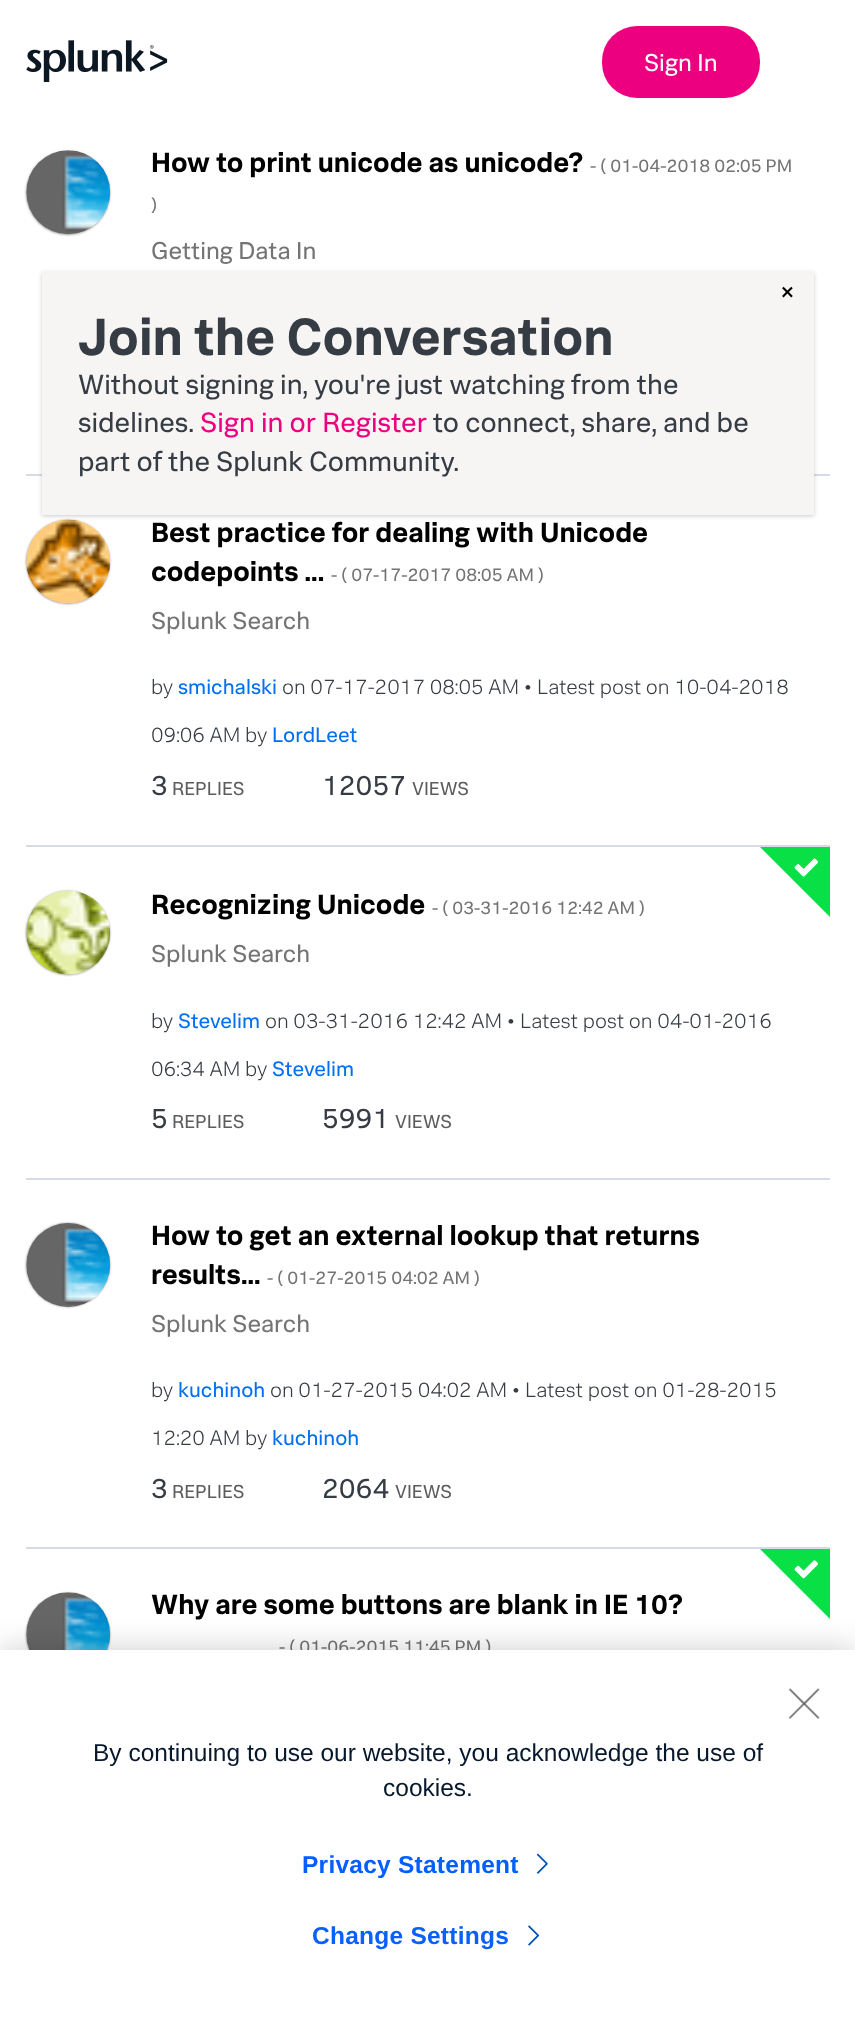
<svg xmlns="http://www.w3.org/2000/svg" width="855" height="2017">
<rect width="100%" height="100%" fill="#fff"/>
<image x="26" y="40" width="142" height="42" href="media/1.png"/>
<rect x="602" y="26" width="158" height="72" rx="35" fill="#ed0080"/>
<text x="644" y="71" style="font-family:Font;font-size:24.5px;fill:#fff">Sign In</text>
<rect x="26" y="474" width="804" height="2" fill="#d5dce5"/>
<rect x="26" y="520" width="84" height="84" rx="42" fill="#999" filter="blur(1px)"/>
<image x="26" y="519" width="85" height="85" href="media/3.png"/>
<rect x="42" y="273" width="772" height="243" fill="#00000033" filter="blur(2px)"/>
<rect x="42" y="271" width="772" height="244" fill="#f7f4f4"/>
<text x="779" y="301" style="font-family:Font;font-size:28px;fill:#000">×</text>
<text x="78" y="355" style="font-family:Font;font-size:52.5px;font-weight:bold;fill:#363c44">Join the Conversation</text>
<text x="78" y="394" style="font-family:Font;font-size:28px;fill:#363c44">Without signing in, you're just watching from the</text>
<text x="78" y="432" style="font-family:Font;font-size:28px;fill:#363c44">sidelines.</text>
<text x="200" y="432" style="font-family:Font;font-size:28px;fill:#ed0080">Sign in or Register</text>
<text x="433" y="432" style="font-family:Font;font-size:28px;fill:#363c44">to connect, share, and be</text>
<text x="78" y="471" style="font-family:Font;font-size:28px;fill:#363c44">part of the Splunk Community.</text>
<rect x="26" y="151" width="84" height="84" rx="42" fill="#999" filter="blur(1px)"/>
<image x="26" y="150" width="85" height="85" href="media/2.png"/>
<text x="151" y="172" style="font-family:Font;font-size:28px;font-weight:bold;fill:#000">How to print unicode as unicode?</text>
<text x="590" y="172" style="font-family:Font;font-size:18.25px;fill:#747474">- ( 01-04-2018 02:05 PM</text>
<text x="151" y="211" style="font-family:Font;font-size:18.25px;fill:#747474">)</text>
<text x="151" y="259" style="font-family:Font;font-size:24.5px;fill:#747474">Getting Data In</text>
<text x="151" y="542" style="font-family:Font;font-size:28px;font-weight:bold;fill:#000">Best practice for dealing with Unicode</text>
<text x="151" y="581" style="font-family:Font;font-size:28px;font-weight:bold;fill:#000">codepoints ...</text>
<text x="331" y="581" style="font-family:Font;font-size:18.25px;fill:#747474">- ( 07-17-2017 08:05 AM )</text>
<text x="151" y="629" style="font-family:Font;font-size:24.5px;fill:#747474">Splunk Search</text>
<text x="151" y="694" style="font-family:Font;font-size:21px;font-weight:300;fill:#363c44">by</text>
<text x="178" y="694" style="font-family:Font;font-size:21px;fill:#0070f3">smichalski</text>
<text x="282" y="694" style="font-family:Font;font-size:21px;font-weight:300;fill:#363c44">on 07-17-2017 08:05 AM</text>
<text x="524" y="694" style="font-family:Font;font-size:24.5px;font-weight:300;fill:#363c44">•</text>
<text x="537" y="694" style="font-family:Font;font-size:21px;font-weight:300;fill:#363c44">Latest post on 10-04-2018</text>
<text x="151" y="742" style="font-family:Font;font-size:21px;font-weight:300;fill:#363c44">09:06 AM by</text>
<text x="272" y="742" style="font-family:Font;font-size:21px;fill:#0070f3">LordLeet</text>
<text x="151" y="795" style="font-family:Font;font-size:28px;fill:#363c44">3</text>
<text x="172" y="795" style="font-family:Font;font-size:19px;fill:#5d5d5d">REPLIES</text>
<text x="322" y="795" style="font-family:Font;font-size:28px;fill:#363c44">12057</text>
<text x="412" y="795" style="font-family:Font;font-size:19px;fill:#5d5d5d">VIEWS</text>
<rect x="26" y="845" width="804" height="2" fill="#d5dce5"/>
<rect x="26" y="891" width="84" height="84" rx="42" fill="#999" filter="blur(1px)"/>
<image x="26" y="890" width="85" height="85" href="media/4.png"/>
<text x="151" y="914" style="font-family:Font;font-size:28px;font-weight:bold;fill:#000">Recognizing Unicode</text>
<text x="432" y="914" style="font-family:Font;font-size:18.25px;fill:#747474">- ( 03-31-2016 12:42 AM )</text>
<text x="151" y="962" style="font-family:Font;font-size:24.5px;fill:#747474">Splunk Search</text>
<text x="151" y="1028" style="font-family:Font;font-size:21px;font-weight:300;fill:#363c44">by</text>
<text x="178" y="1028" style="font-family:Font;font-size:21px;fill:#0070f3">Stevelim</text>
<text x="265" y="1028" style="font-family:Font;font-size:21px;font-weight:300;fill:#363c44">on 03-31-2016 12:42 AM</text>
<text x="507" y="1028" style="font-family:Font;font-size:24.5px;font-weight:300;fill:#363c44">•</text>
<text x="520" y="1028" style="font-family:Font;font-size:21px;font-weight:300;fill:#363c44">Latest post on 04-01-2016</text>
<text x="151" y="1076" style="font-family:Font;font-size:21px;font-weight:300;fill:#363c44">06:34 AM by</text>
<text x="272" y="1076" style="font-family:Font;font-size:21px;fill:#0070f3">Stevelim</text>
<text x="151" y="1128" style="font-family:Font;font-size:28px;fill:#363c44">5</text>
<text x="172" y="1128" style="font-family:Font;font-size:19px;fill:#5d5d5d">REPLIES</text>
<text x="322" y="1128" style="font-family:Font;font-size:28px;fill:#363c44">5991</text>
<text x="395" y="1128" style="font-family:Font;font-size:19px;fill:#5d5d5d">VIEWS</text>
<path d="M760 847h70v70z" fill="#08e045"/>
<image x="794" y="858" width="24" height="19" href="media/5.png"/>
<rect x="26" y="1178" width="804" height="2" fill="#d5dce5"/>
<rect x="26" y="1223" width="84" height="84" rx="42" fill="#999" filter="blur(1px)"/>
<image x="26" y="1223" width="85" height="84" href="media/6.png"/>
<text x="151" y="1245" style="font-family:Font;font-size:28px;font-weight:bold;fill:#000">How to get an external lookup that returns</text>
<text x="151" y="1284" style="font-family:Font;font-size:28px;font-weight:bold;fill:#000">results...</text>
<text x="267" y="1284" style="font-family:Font;font-size:18.25px;fill:#747474">- ( 01-27-2015 04:02 AM )</text>
<text x="151" y="1332" style="font-family:Font;font-size:24.5px;fill:#747474">Splunk Search</text>
<text x="151" y="1397" style="font-family:Font;font-size:21px;font-weight:300;fill:#363c44">by</text>
<text x="178" y="1397" style="font-family:Font;font-size:21px;fill:#0070f3">kuchinoh</text>
<text x="270" y="1397" style="font-family:Font;font-size:21px;font-weight:300;fill:#363c44">on 01-27-2015 04:02 AM</text>
<text x="512" y="1397" style="font-family:Font;font-size:24.5px;font-weight:300;fill:#363c44">•</text>
<text x="525" y="1397" style="font-family:Font;font-size:21px;font-weight:300;fill:#363c44">Latest post on 01-28-2015</text>
<text x="151" y="1445" style="font-family:Font;font-size:21px;font-weight:300;fill:#363c44">12:20 AM by</text>
<text x="272" y="1445" style="font-family:Font;font-size:21px;fill:#0070f3">kuchinoh</text>
<text x="151" y="1498" style="font-family:Font;font-size:28px;fill:#363c44">3</text>
<text x="172" y="1498" style="font-family:Font;font-size:19px;fill:#5d5d5d">REPLIES</text>
<text x="322" y="1498" style="font-family:Font;font-size:28px;fill:#363c44">2064</text>
<text x="395" y="1498" style="font-family:Font;font-size:19px;fill:#5d5d5d">VIEWS</text>
<rect x="26" y="1547" width="804" height="2" fill="#d5dce5"/>
<rect x="26" y="1593" width="84" height="84" rx="42" fill="#999" filter="blur(1px)"/>
<image x="26" y="1592" width="85" height="58" href="media/7.png"/>
<text x="151" y="1614" style="font-family:Font;font-size:28px;font-weight:bold;fill:#000">Why are some buttons are blank in IE 10?</text>
<text x="279" y="1653" style="font-family:Font;font-size:18.25px;fill:#747474">- ( 01-06-2015 11:45 PM )</text>
<path d="M760 1549h70v70z" fill="#08e045"/>
<image x="794" y="1560" width="24" height="19" href="media/8.png"/>
<rect y="1650" width="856" height="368" fill="#00000033" filter="blur(16px)"/>
<rect y="1650" width="855" height="367" fill="#fff"/>
<image x="788" y="1688" width="32" height="32" href="media/9.png"/>
<text x="93" y="1761" style="font-family:Liberation Sans;font-size:24.5px;fill:#07182d">By continuing to use our website, you acknowledge the use of</text>
<text x="383" y="1796" style="font-family:Liberation Sans;font-size:24.5px;fill:#07182d">cookies.</text>
<text x="302" y="1873" style="font-family:Liberation Sans;font-size:24.5px;font-weight:bold;letter-spacing:0.25px;fill:#0060ff">Privacy Statement</text>
<image x="536" y="1853" width="12" height="21" href="media/10.png"/>
<text x="312" y="1944" style="font-family:Liberation Sans;font-size:24.5px;font-weight:bold;letter-spacing:0.25px;fill:#0a60ff">Change Settings</text>
<image x="528" y="1925" width="11" height="21" href="media/11.png"/>
</svg>
